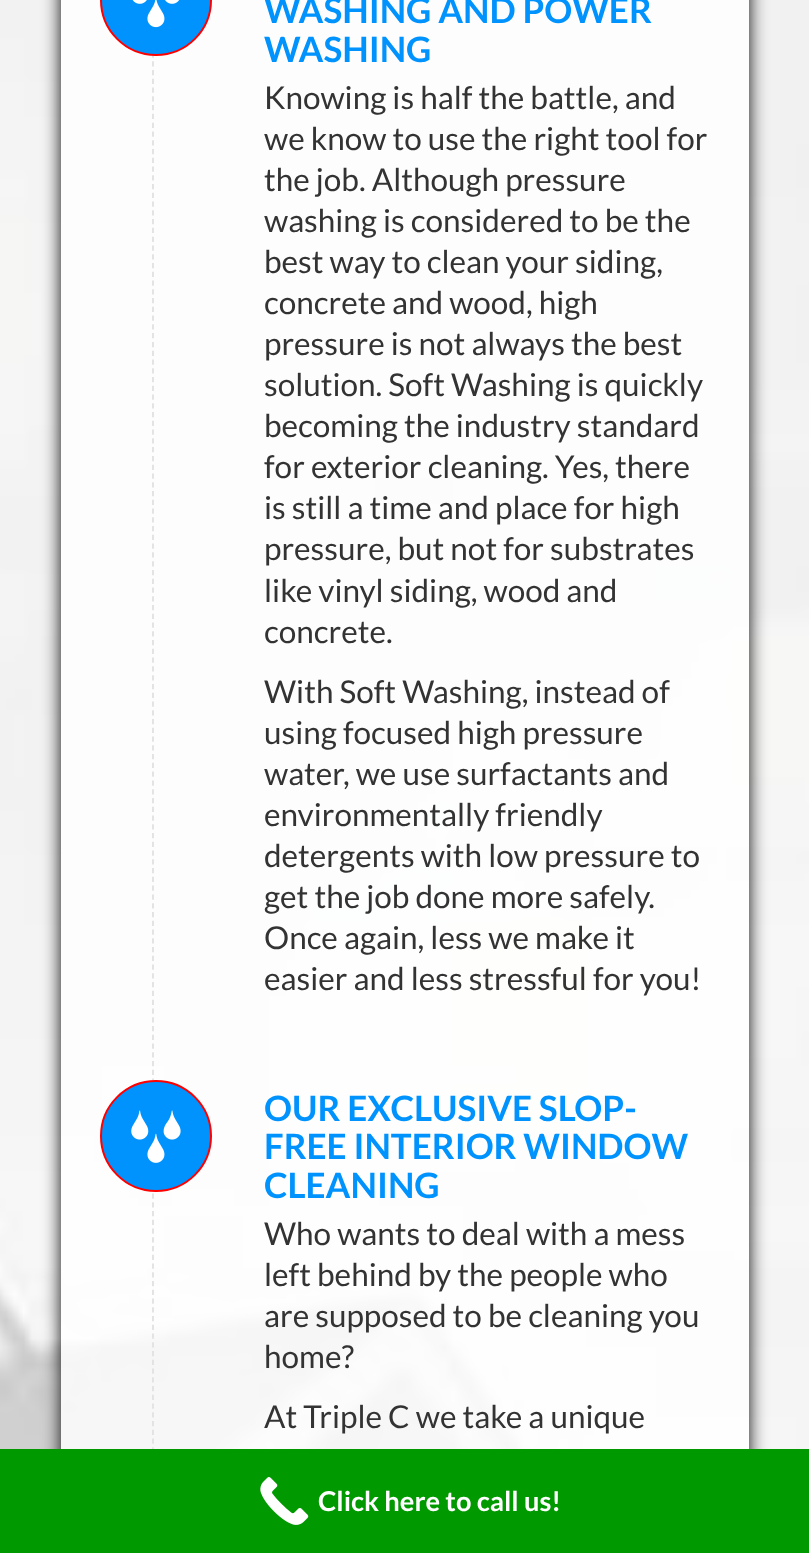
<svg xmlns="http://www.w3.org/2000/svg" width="809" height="1553">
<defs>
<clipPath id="clip1"><path d="M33 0h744v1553h-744zm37-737h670c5 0 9 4 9 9v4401c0 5-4 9-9 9h-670c-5 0-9-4-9-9v-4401c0-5 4-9 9-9z" clip-rule="evenodd"/></clipPath>
</defs>
<rect width="100%" height="100%" fill="#fff"/>
<image x="0" y="0" width="809" height="1449" href="media/1.png"/>
<g clip-path="url(#clip1)">
<rect x="61" y="-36" width="688" height="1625" rx="9" fill="#0a0a0a" filter="blur(9px)"/>
</g>
<rect x="61" width="688" height="1449" fill="#ffffffd1"/>
<path d="M153-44v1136" fill="none" stroke="#e1e1e1" stroke-width="1.8" stroke-dasharray="5.25 3.52"/>
<circle cx="156" cy="0" r="55" fill="#0093fd" stroke="#f00" stroke-width="2"/>
<image x="132" y="0" width="48" height="28" href="media/2.png"/>
<text x="264" y="23" style="font-family:Lato;font-size:35px;font-weight:bold;fill:#0093fd">WASHING AND POWER</text>
<text x="264" y="62" style="font-family:Lato;font-size:35px;font-weight:bold;fill:#0093fd">WASHING</text>
<text x="264" y="109" style="font-family:Lato;font-size:31.5px;fill:#333">Knowing is half the battle, and</text>
<text x="264" y="150" style="font-family:Lato;font-size:31.5px;fill:#333">we know to use the right tool for</text>
<text x="264" y="191" style="font-family:Lato;font-size:31.5px;fill:#333">the job. Although pressure</text>
<text x="264" y="232" style="font-family:Lato;font-size:31.5px;fill:#333">washing is considered to be the</text>
<text x="264" y="273" style="font-family:Lato;font-size:31.5px;fill:#333">best way to clean your siding,</text>
<text x="264" y="314" style="font-family:Lato;font-size:31.5px;fill:#333">concrete and wood, high</text>
<text x="264" y="355" style="font-family:Lato;font-size:31.5px;fill:#333">pressure is not always the best</text>
<text x="264" y="396" style="font-family:Lato;font-size:31.5px;fill:#333">solution. Soft Washing is quickly</text>
<text x="264" y="437" style="font-family:Lato;font-size:31.5px;fill:#333">becoming the industry standard</text>
<text x="264" y="478" style="font-family:Lato;font-size:31.5px;fill:#333">for exterior cleaning. Yes, there</text>
<text x="264" y="519" style="font-family:Lato;font-size:31.5px;fill:#333">is still a time and place for high</text>
<text x="264" y="560" style="font-family:Lato;font-size:31.5px;fill:#333">pressure, but not for substrates</text>
<text x="264" y="602" style="font-family:Lato;font-size:31.5px;fill:#333">like vinyl siding, wood and</text>
<text x="264" y="643" style="font-family:Lato;font-size:31.5px;fill:#333">concrete.</text>
<text x="264" y="703" style="font-family:Lato;font-size:31.5px;fill:#333">With Soft Washing, instead of</text>
<text x="264" y="744" style="font-family:Lato;font-size:31.5px;fill:#333">using focused high pressure</text>
<text x="264" y="785" style="font-family:Lato;font-size:31.5px;fill:#333">water, we use surfactants and</text>
<text x="264" y="826" style="font-family:Lato;font-size:31.5px;fill:#333">environmentally friendly</text>
<text x="264" y="867" style="font-family:Lato;font-size:31.5px;fill:#333">detergents with low pressure to</text>
<text x="264" y="908" style="font-family:Lato;font-size:31.5px;fill:#333">get the job done more safely.</text>
<text x="264" y="949" style="font-family:Lato;font-size:31.5px;fill:#333">Once again, less we make it</text>
<text x="264" y="990" style="font-family:Lato;font-size:31.5px;fill:#333">easier and less stressful for you!</text>
<path d="M153 1088.5v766.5" fill="none" stroke="#e1e1e1" stroke-width="1.8" stroke-dasharray="5.25 3.5"/>
<circle cx="156" cy="1136" r="55" fill="#0093fd" stroke="#f00" stroke-width="2"/>
<image x="131" y="1110" width="50" height="53" href="media/3.png"/>
<text x="264" y="1121" style="font-family:Lato;font-size:35px;font-weight:bold;fill:#0093fd">OUR EXCLUSIVE SLOP-</text>
<text x="264" y="1159" style="font-family:Lato;font-size:35px;font-weight:bold;fill:#0093fd">FREE INTERIOR WINDOW</text>
<text x="264" y="1198" style="font-family:Lato;font-size:35px;font-weight:bold;fill:#0093fd">CLEANING</text>
<text x="264" y="1245" style="font-family:Lato;font-size:31.5px;fill:#333">Who wants to deal with a mess</text>
<text x="264" y="1286" style="font-family:Lato;font-size:31.5px;fill:#333">left behind by the people who</text>
<text x="264" y="1327" style="font-family:Lato;font-size:31.5px;fill:#333">are supposed to be cleaning you</text>
<text x="264" y="1368" style="font-family:Lato;font-size:31.5px;fill:#333">home?</text>
<text x="264" y="1428" style="font-family:Lato;font-size:31.5px;fill:#333">At Triple C we take a unique</text>
<rect y="1449" width="809" height="104" fill="#090"/>
<image x="260" y="1477" width="49" height="48" href="media/4.png"/>
<text x="318" y="1511" style="font-family:Lato;font-size:27.25px;font-weight:bold;fill:#fff">Click here to call us!</text>
</svg>
